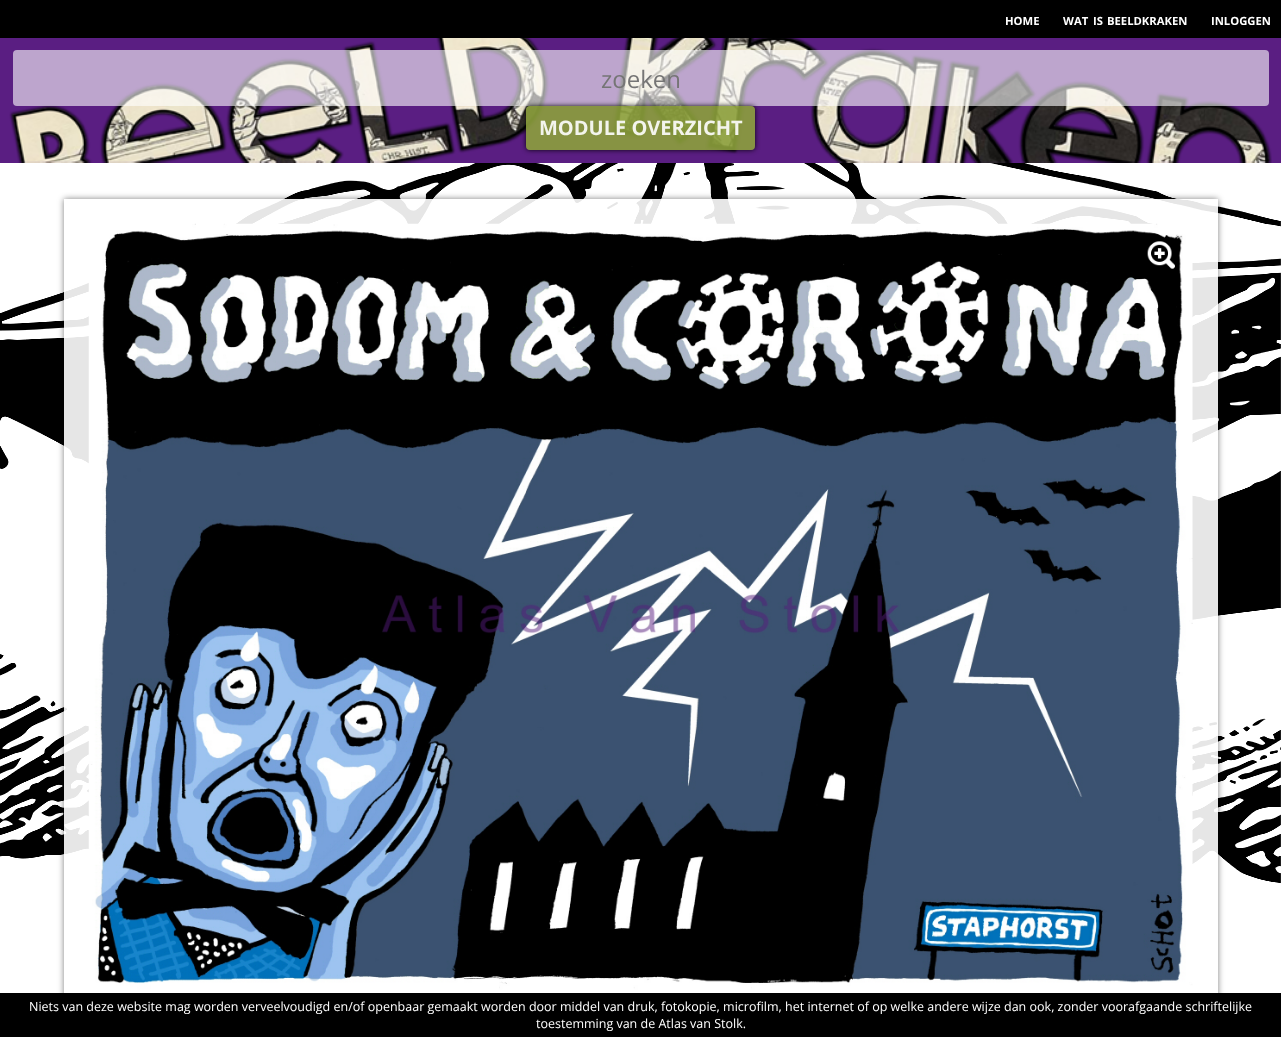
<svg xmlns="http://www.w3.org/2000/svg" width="1281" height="1037">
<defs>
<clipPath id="clip1"><path d="M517 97h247v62h-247zm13 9h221c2 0 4 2 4 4v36c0 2-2 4-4 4h-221c-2 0-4-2-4-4v-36c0-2 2-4 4-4z" clip-rule="evenodd"/></clipPath>
<clipPath id="clip2"><path d="M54 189h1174v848h-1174zm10 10h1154v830h-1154z" clip-rule="evenodd"/></clipPath>
</defs>
<rect width="100%" height="100%" fill="#fff"/>
<rect width="1281" height="38" fill="#000"/>
<text x="1005" y="25" style="font-family:Open Sans;font-size:11.25px;font-weight:bold;fill:#fff">HOME</text>
<text x="1063" y="25" style="font-family:Open Sans;font-size:11.25px;font-weight:bold;fill:#fff">WAT</text>
<text x="1093" y="25" style="font-family:Open Sans;font-size:11.25px;font-weight:bold;fill:#fff">IS</text>
<text x="1107" y="25" style="font-family:Open Sans;font-size:11.25px;font-weight:bold;fill:#fff">BEELDKRAKEN</text>
<text x="1211" y="25" style="font-family:Open Sans;font-size:11.25px;font-weight:bold;fill:#fff">INLOGGEN</text>
<rect y="38" width="1281" height="125" fill="#5a1e82"/>
<image x="9" y="38" width="1263" height="125" href="media/1.png"/>
<rect x="13" y="50" width="1256" height="56" rx="4" fill="#ffffff99"/>
<text x="601" y="88" style="font-family:Open Sans;font-size:24px;fill:#757575">zoeken</text>
<g clip-path="url(#clip1)">
<rect x="526" y="106" width="229" height="44" rx="4" fill="#000000e6" filter="blur(2.5px)"/>
</g>
<rect x="526" y="106" width="229" height="44" rx="4" fill="#8ca03ce6"/>
<text x="539" y="135" style="font-family:Open Sans;font-size:20px;font-weight:bold;fill:#f3f4ec">MODULE OVERZICHT</text>
<image x="0" y="163" width="1281" height="793" href="media/2.png"/>
<g clip-path="url(#clip2)">
<rect x="64" y="199" width="1154" height="830" fill="#00000080" filter="blur(3px)"/>
</g>
<rect x="64" y="199" width="1154" height="794" fill="#ffffffe6"/>
<image x="88" y="223" width="1105" height="770" href="media/3.png"/>
<image x="1147" y="241" width="28" height="28" href="media/4.png"/>
<rect y="993" width="1281" height="44" fill="#000"/>
<text x="29" y="1011" style="font-family:Open Sans;font-size:12.5px;fill:#fff">Niets van deze website mag worden verveelvoudigd en/of openbaar gemaakt worden door middel van druk, fotokopie, microfilm, het internet of op welke andere wijze dan ook, zonder voorafgaande schriftelijke</text>
<text x="536" y="1028" style="font-family:Open Sans;font-size:12.5px;fill:#fff">toestemming van de Atlas van Stolk.</text>
</svg>
